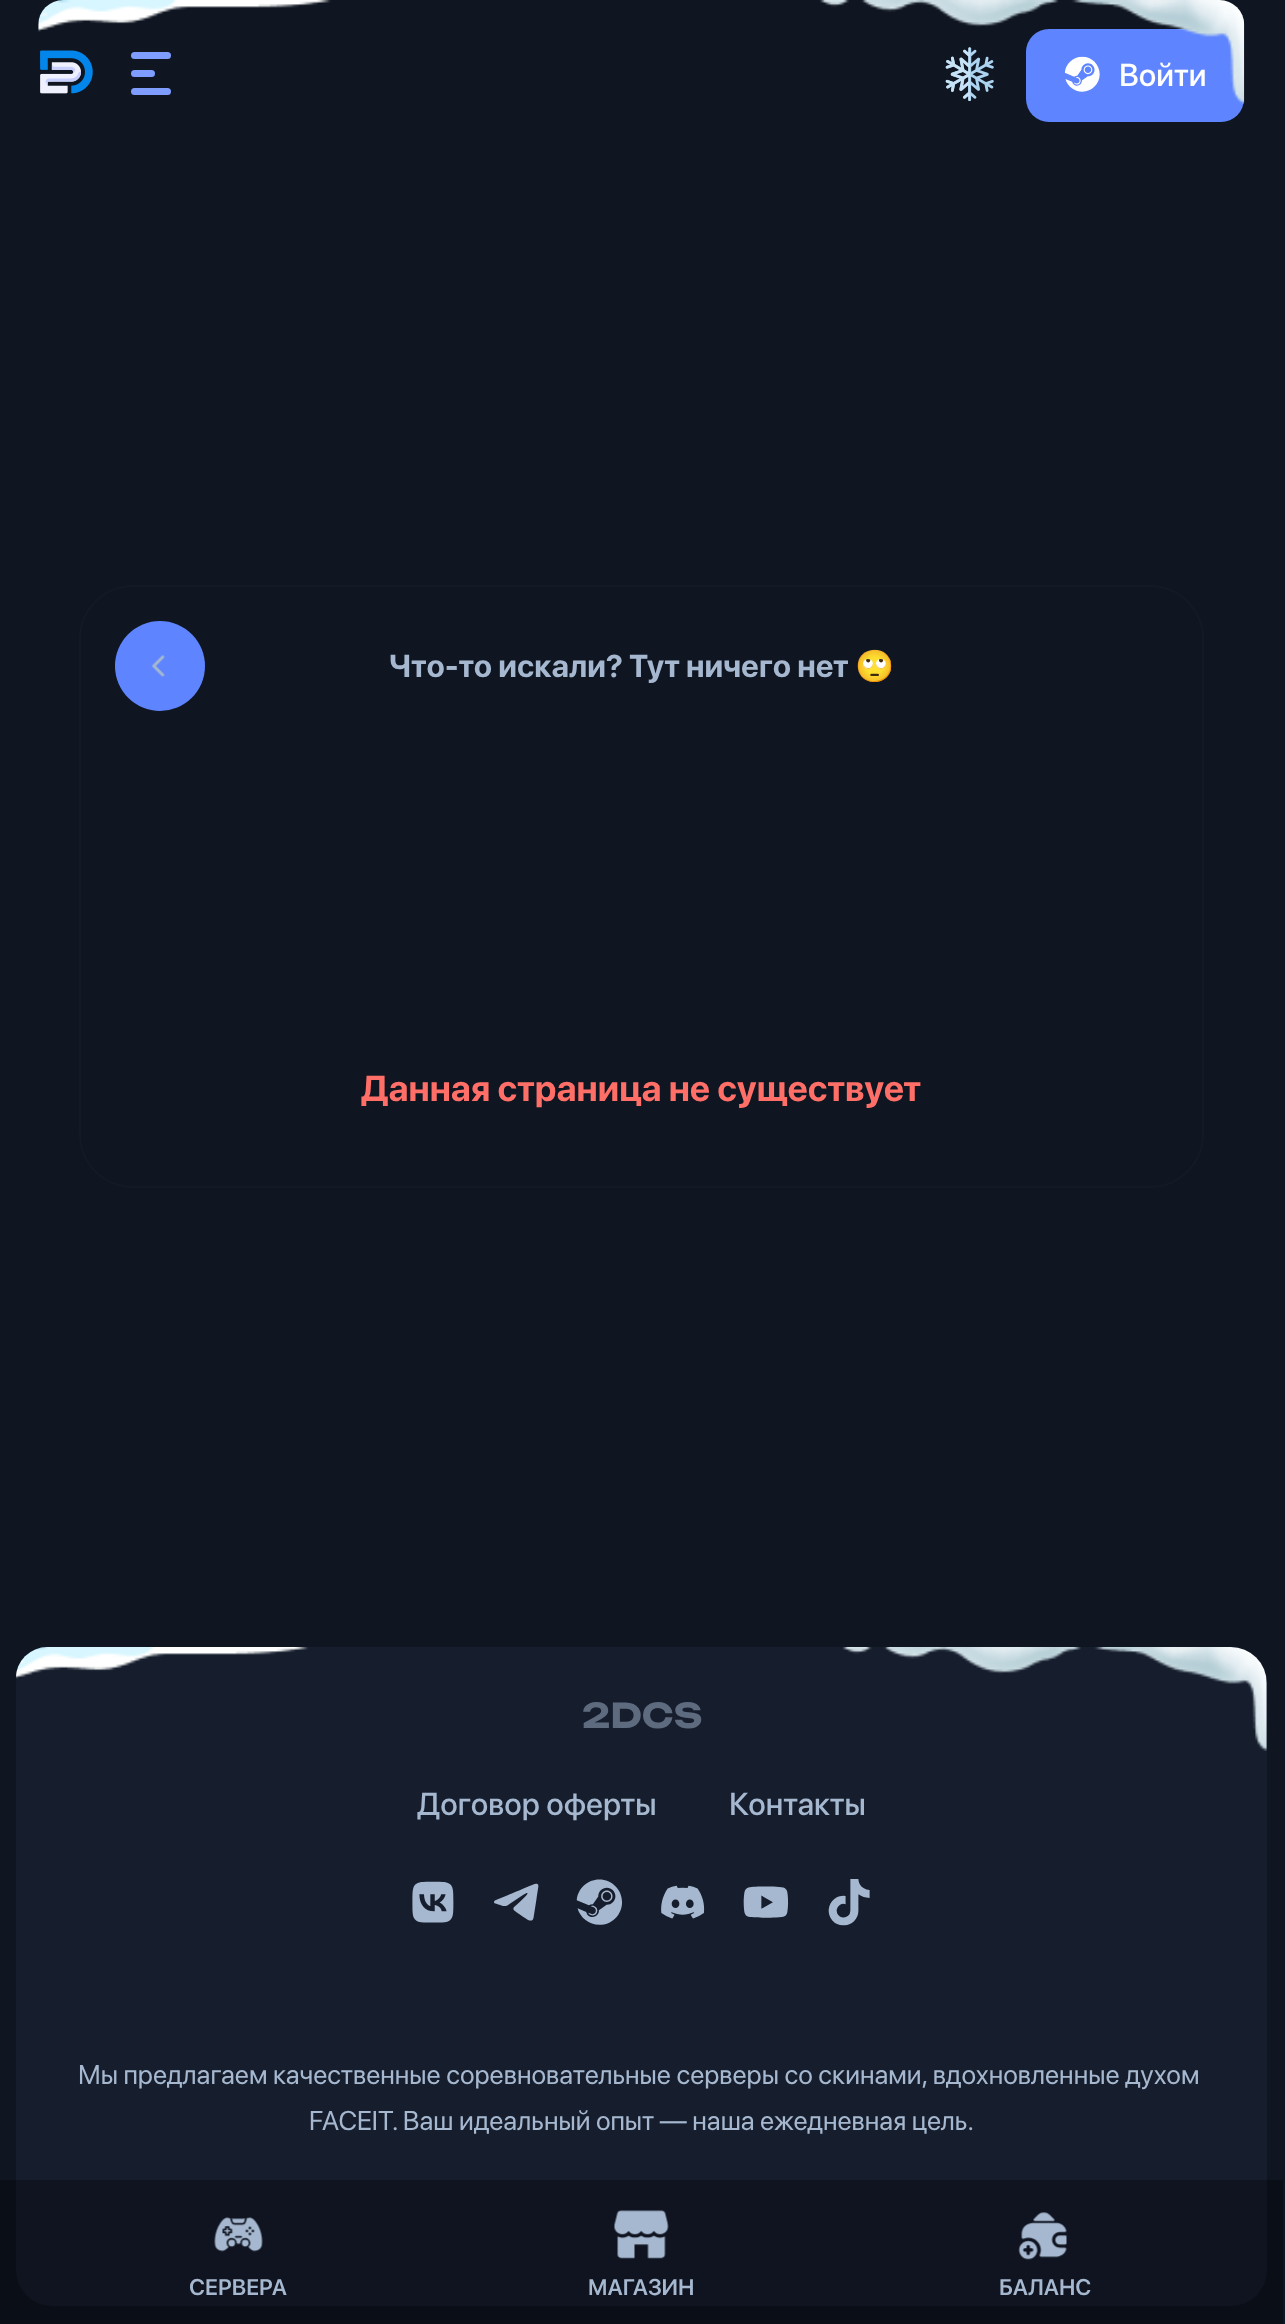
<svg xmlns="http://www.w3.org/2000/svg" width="1285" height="2324">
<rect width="100%" height="100%" fill="#0f1622"/>
<image x="38" y="0" width="293" height="32" href="media/1.png"/>
<image x="945" y="47" width="49" height="54" href="media/4.png"/>
<rect x="1026" y="29" width="218" height="93" rx="23" fill="#5e85ff"/>
<image x="1064" y="56" width="36" height="36" href="media/5.png"/>
<text x="1119" y="86" style="font-family:SF Pro Display;font-size:31.5px;font-weight:500;fill:#fff">Войти</text>
<image x="819" y="0" width="426" height="104" href="media/2.png"/>
<image x="40" y="50" width="53" height="44" href="media/3.png"/>
<rect x="131" y="52" width="40" height="7" rx="3.5" fill="#7e9dff"/>
<rect x="131" y="70" width="24" height="7" rx="3.5" fill="#7e9dff"/>
<rect x="131" y="88" width="40" height="7" rx="3.5" fill="#7e9dff"/>
<rect x="80" y="586" width="1123" height="601" rx="53" fill="none" stroke="#131a26" stroke-width="2"/>
<circle cx="160" cy="666" r="45" fill="#5e85ff"/>
<image x="151" y="655" width="14" height="22" href="media/6.png"/>
<text x="389" y="677" style="font-family:SF Pro Display;font-size:31.5px;font-weight:bold;fill:#a6b8cf">Что-то искали? Тут ничего нет</text>
<text x="855" y="677" style="font-family:Noto Color Emoji;font-size:31.5px;font-weight:bold;fill:#a6b8cf">🙄</text>
<text x="361" y="1101" style="font-family:SF Pro Display;font-size:36px;font-weight:bold;fill:#ff6f68">Данная страница не существует</text>
<rect x="16" y="1647" width="1251" height="659" rx="36" fill="#161e2e"/>
<image x="16" y="1647" width="292" height="32" href="media/7.png"/>
<text x="582" y="1728" style="font-family:Unbounded;font-size:34px;font-weight:bold;fill:#5e6b7f">2DCS</text>
<text x="417" y="1815" style="font-family:SF Pro Display;font-size:31.5px;font-weight:500;fill:#a6b8cf">Договор оферты</text>
<text x="729" y="1815" style="font-family:SF Pro Display;font-size:31.5px;font-weight:500;fill:#a6b8cf">Контакты</text>
<image x="412" y="1881" width="42" height="42" href="media/8.png"/>
<image x="494" y="1883" width="45" height="38" href="media/9.png"/>
<image x="576" y="1879" width="47" height="46" href="media/10.png"/>
<image x="661" y="1885" width="44" height="34" href="media/11.png"/>
<image x="743" y="1886" width="46" height="32" href="media/12.png"/>
<image x="828" y="1879" width="42" height="47" href="media/13.png"/>
<image x="842" y="1647" width="425" height="104" href="media/14.png"/>
<text x="78" y="2084" style="font-family:SF Pro Display;font-size:27px;fill:#a6b8cf">Мы предлагаем качественные соревновательные серверы со скинами, вдохновленные духом</text>
<text x="309" y="2130" style="font-family:SF Pro Display;font-size:27px;fill:#a6b8cf">FACEIT. Ваш идеальный опыт — наша ежедневная цель.</text>
<rect y="2180" width="1283" height="144" fill="#0000004d"/>
<image x="214" y="2217" width="49" height="35" href="media/15.png"/>
<text x="189" y="2295" style="font-family:SF Pro Display;font-size:22.5px;font-weight:600;fill:#a6b8cf">СЕРВЕРА</text>
<image x="614" y="2210" width="55" height="49" href="media/16.png"/>
<text x="588" y="2295" style="font-family:SF Pro Display;font-size:22.5px;font-weight:600;fill:#a6b8cf">МАГАЗИН</text>
<image x="1018" y="2212" width="49" height="48" href="media/17.png"/>
<text x="999" y="2295" style="font-family:SF Pro Display;font-size:22.5px;font-weight:600;fill:#a6b8cf">БАЛАНС</text>
</svg>
